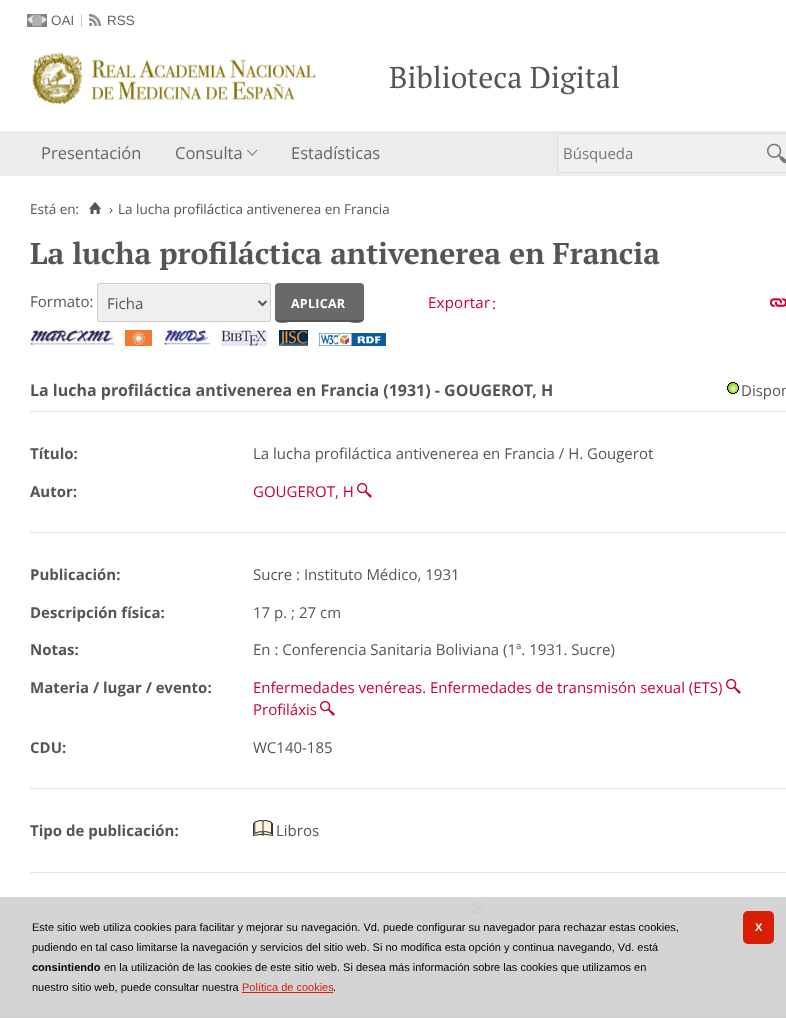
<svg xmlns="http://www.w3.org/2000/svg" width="786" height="1018">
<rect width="100%" height="100%" fill="#fff"/>
<rect y="897" width="786" height="121" fill="#d4d4d4"/>
<image x="27" y="14" width="20" height="13" href="media/1.png"/>
<text x="51" y="25" style="font-family:Liberation Sans;font-size:13.5px;fill:#666">OAI</text>
<rect x="81" y="14" width="1" height="13" fill="#ccc"/>
<image x="89" y="14" width="12" height="12" href="media/2.png"/>
<text x="107" y="25" style="font-family:Liberation Sans;font-size:13.5px;fill:#666">RSS</text>
<image x="32" y="53" width="284" height="52" href="media/3.png"/>
<text x="389" y="88" style="font-family:PT Serif;font-size:30px;fill:#555">Biblioteca Digital</text>
<rect y="131" width="786" height="45" fill="#ececec"/>
<text x="41" y="159" style="font-family:Open Sans;font-size:16.5px;fill:#666">Presentación</text>
<text x="175" y="159" style="font-family:Open Sans;font-size:16.5px;fill:#666">Consulta</text>
<image x="247" y="149" width="11" height="7" href="media/4.png"/>
<text x="291" y="159" style="font-family:Open Sans;font-size:16.5px;fill:#666">Estadísticas</text>
<rect x="557.5" y="133.5" width="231" height="39" rx="1.5" fill="#f0f0f0" stroke="#ddd"/>
<text x="563" y="159" style="font-family:Open Sans;font-size:15px;fill:#757575">Búsqueda</text>
<image x="767" y="143" width="19" height="21" href="media/5.png"/>
<text x="30" y="214" style="font-family:Open Sans;font-size:13.5px;fill:#555">Está en:</text>
<image x="89" y="202" width="12" height="12" href="media/6.png"/>
<text x="109" y="214" style="font-family:Open Sans;font-size:13.5px;fill:#555">›</text>
<text x="118" y="214" style="font-family:Open Sans;font-size:13.5px;fill:#555">La lucha profiláctica antivenerea en Francia</text>
<text x="30" y="264" style="font-family:PT Serif;font-size:30px;font-weight:bold;fill:#555">La lucha profiláctica antivenerea en Francia</text>
<text x="30" y="307" style="font-family:Open Sans;font-size:15px;fill:#555">Formato:</text>
<rect x="97.5" y="283.5" width="173" height="38" rx="1.5" fill="#efefef" stroke="#ccc"/>
<path d="M258.5 301l4 4l4-4" fill="none" stroke="#555" stroke-width="2"/>
<text x="107" y="309" style="font-family:Open Sans;font-size:15px;fill:#555">Ficha</text>
<rect x="275" y="283" width="89" height="39" rx="4" fill="#696969"/>
<path d="M275 316c0 10 9 6 17 6h54c9 0 18 4 18-6c0 2-2 4-4 4h-81c-2 0-4-2-4-4z" fill="#555"/>
<text x="291" y="308" style="font-family:Open Sans;font-size:12.5px;font-weight:bold;letter-spacing:0.25px;fill:#fff">APLICAR</text>
<text x="428" y="308" style="font-family:Open Sans;font-size:15px;letter-spacing:0.25px;fill:#c03">Exportar</text>
<text x="492" y="309" style="font-family:Open Sans;font-size:15px;fill:#c03">:</text>
<image x="30" y="330" width="84" height="16" href="media/7.png"/>
<image x="125" y="330" width="27" height="16" href="media/8.png"/>
<image x="164" y="330" width="46" height="15" href="media/9.png"/>
<image x="221" y="330" width="46" height="16" href="media/10.png"/>
<image x="279" y="330" width="29" height="16" href="media/11.png"/>
<image x="319" y="333" width="67" height="13" href="media/12.png"/>
<image x="770" y="298" width="16" height="9" href="media/13.png"/>
<rect x="30" y="411" width="756" height="1" fill="#e5e5e5"/>
<text x="30" y="396" style="font-family:Open Sans;font-size:16px;font-weight:bold;fill:#555">La lucha profiláctica antivenerea en Francia (1931) - GOUGEROT, H</text>
<image x="727" y="382" width="12" height="12" href="media/14.png"/>
<text x="741" y="396" style="font-family:Open Sans;font-size:15px;fill:#555">Dispon</text>
<rect x="30" y="532" width="756" height="1" fill="#e5e5e5"/>
<text x="30" y="459" style="font-family:Open Sans;font-size:15px;font-weight:bold;fill:#555">Título:</text>
<text x="253" y="459" style="font-family:Open Sans;font-size:15px;fill:#555">La lucha profiláctica antivenerea en Francia / H. Gougerot</text>
<text x="30" y="497" style="font-family:Open Sans;font-size:15px;font-weight:bold;fill:#555">Autor:</text>
<text x="253" y="497" style="font-family:Open Sans;font-size:15px;fill:#c03">GOUGEROT, H</text>
<image x="357" y="482" width="15" height="16" href="media/15.png"/>
<rect x="30" y="788" width="756" height="1" fill="#e5e5e5"/>
<text x="30" y="580" style="font-family:Open Sans;font-size:15px;font-weight:bold;fill:#555">Publicación:</text>
<text x="253" y="580" style="font-family:Open Sans;font-size:15px;fill:#555">Sucre : Instituto Médico, 1931</text>
<text x="30" y="618" style="font-family:Open Sans;font-size:15px;font-weight:bold;fill:#555">Descripción física:</text>
<text x="253" y="618" style="font-family:Open Sans;font-size:15px;fill:#555">17 p. ; 27 cm</text>
<text x="30" y="655" style="font-family:Open Sans;font-size:15px;font-weight:bold;fill:#555">Notas:</text>
<text x="253" y="655" style="font-family:Open Sans;font-size:15px;fill:#555">En : Conferencia Sanitaria Boliviana (1ª. 1931. Sucre)</text>
<text x="30" y="693" style="font-family:Open Sans;font-size:15px;font-weight:bold;fill:#555">Materia / lugar / evento:</text>
<text x="253" y="693" style="font-family:Open Sans;font-size:15px;fill:#c03">Enfermedades venéreas. Enfermedades de transmisón sexual (ETS)</text>
<image x="726" y="678" width="15" height="16" href="media/15.png"/>
<text x="253" y="715" style="font-family:Open Sans;font-size:15px;fill:#c03">Profiláxis</text>
<image x="320" y="700" width="15" height="16" href="media/15.png"/>
<text x="30" y="753" style="font-family:Open Sans;font-size:15px;font-weight:bold;fill:#555">CDU:</text>
<text x="253" y="753" style="font-family:Open Sans;font-size:15px;fill:#555">WC140-185</text>
<rect x="30" y="872" width="756" height="1" fill="#e5e5e5"/>
<text x="30" y="836" style="font-family:Open Sans;font-size:15px;font-weight:bold;fill:#555">Tipo de publicación:</text>
<image x="253" y="820" width="20" height="16" href="media/16.png"/>
<text x="276" y="836" style="font-family:Open Sans;font-size:15px;fill:#555">Libros</text>
<image x="471" y="903" width="12" height="11" href="media/17.png"/>
<path d="M0 1017.5h786" fill="none" stroke="#ccc" stroke-dasharray="1 1"/>
<text x="32" y="931" style="font-family:Liberation Sans;font-size:11px;fill:#000">Este sitio web utiliza cookies para facilitar y mejorar su navegación. Vd. puede configurar su navegador para rechazar estas cookies,</text>
<text x="32" y="951" style="font-family:Liberation Sans;font-size:11px;fill:#000">pudiendo en tal caso limitarse la navegación y servicios del sitio web. Si no modifica esta opción y continua navegando, Vd. está</text>
<text x="32" y="971" style="font-family:Liberation Sans;font-size:11px;font-weight:bold;fill:#000">consintiendo</text>
<text x="104" y="971" style="font-family:Liberation Sans;font-size:11px;fill:#000">en la utilización de las cookies de este sitio web. Si desea más información sobre las cookies que utilizamos en</text>
<text x="32" y="991" style="font-family:Liberation Sans;font-size:11px;fill:#000">nuestro sitio web, puede consultar nuestra</text>
<text x="242" y="991" style="font-family:Liberation Sans;font-size:11px;fill:#d81e05">Política de cookies</text>
<text x="333" y="991" style="font-family:Liberation Sans;font-size:11px;fill:#000">.</text>
<rect x="242" y="992" width="91" height="1" fill="#d81e05"/>
<rect x="743" y="911" width="31" height="33" rx="5" fill="#d81e05"/>
<text x="755" y="931" style="font-family:Liberation Sans;font-size:11px;font-weight:bold;letter-spacing:-1px;fill:#fff">X</text>
</svg>
